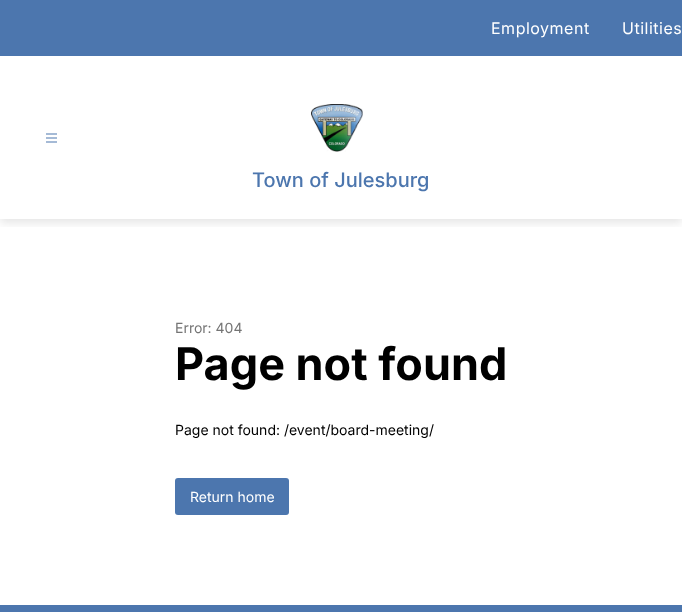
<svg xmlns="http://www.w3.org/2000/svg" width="682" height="612">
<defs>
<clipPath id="clip1"><rect x="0" y="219" width="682" height="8"/></clipPath>
</defs>
<rect width="100%" height="100%" fill="#fff"/>
<g clip-path="url(#clip1)">
<rect y="4" width="682" height="219" fill="#0000001a" filter="blur(5px)"/>
</g>
<rect width="682" height="56" fill="#4c76ae"/>
<text x="491" y="34" style="font-family:Inter;font-size:16px;letter-spacing:0.5px;fill:#fff">Employment</text>
<text x="622" y="34" style="font-family:Inter;font-size:16px;letter-spacing:0.5px;fill:#fff">Utilities</text>
<image x="46" y="133" width="11" height="10" href="media/1.png"/>
<image x="311" y="104" width="52" height="48" href="media/2.png"/>
<text x="252" y="187" style="font-family:Inter;font-size:20px;font-weight:500;fill:#4c76ae">Town of Julesburg</text>
<text x="175" y="333" style="font-family:Inter;font-size:14px;fill:#747474">Error: 404</text>
<text x="175" y="380" style="font-family:Inter;font-size:45px;font-weight:bold;fill:#000">Page not found</text>
<text x="175" y="435" style="font-family:Inter;font-size:14px;fill:#000">Page not found: /event/board-meeting/</text>
<rect x="175" y="478" width="114" height="37" rx="3" fill="#4c76ae"/>
<text x="190" y="502" style="font-family:Inter;font-size:14px;fill:#fff">Return home</text>
<rect y="605" width="682" height="7" fill="#4c76ae"/>
</svg>
